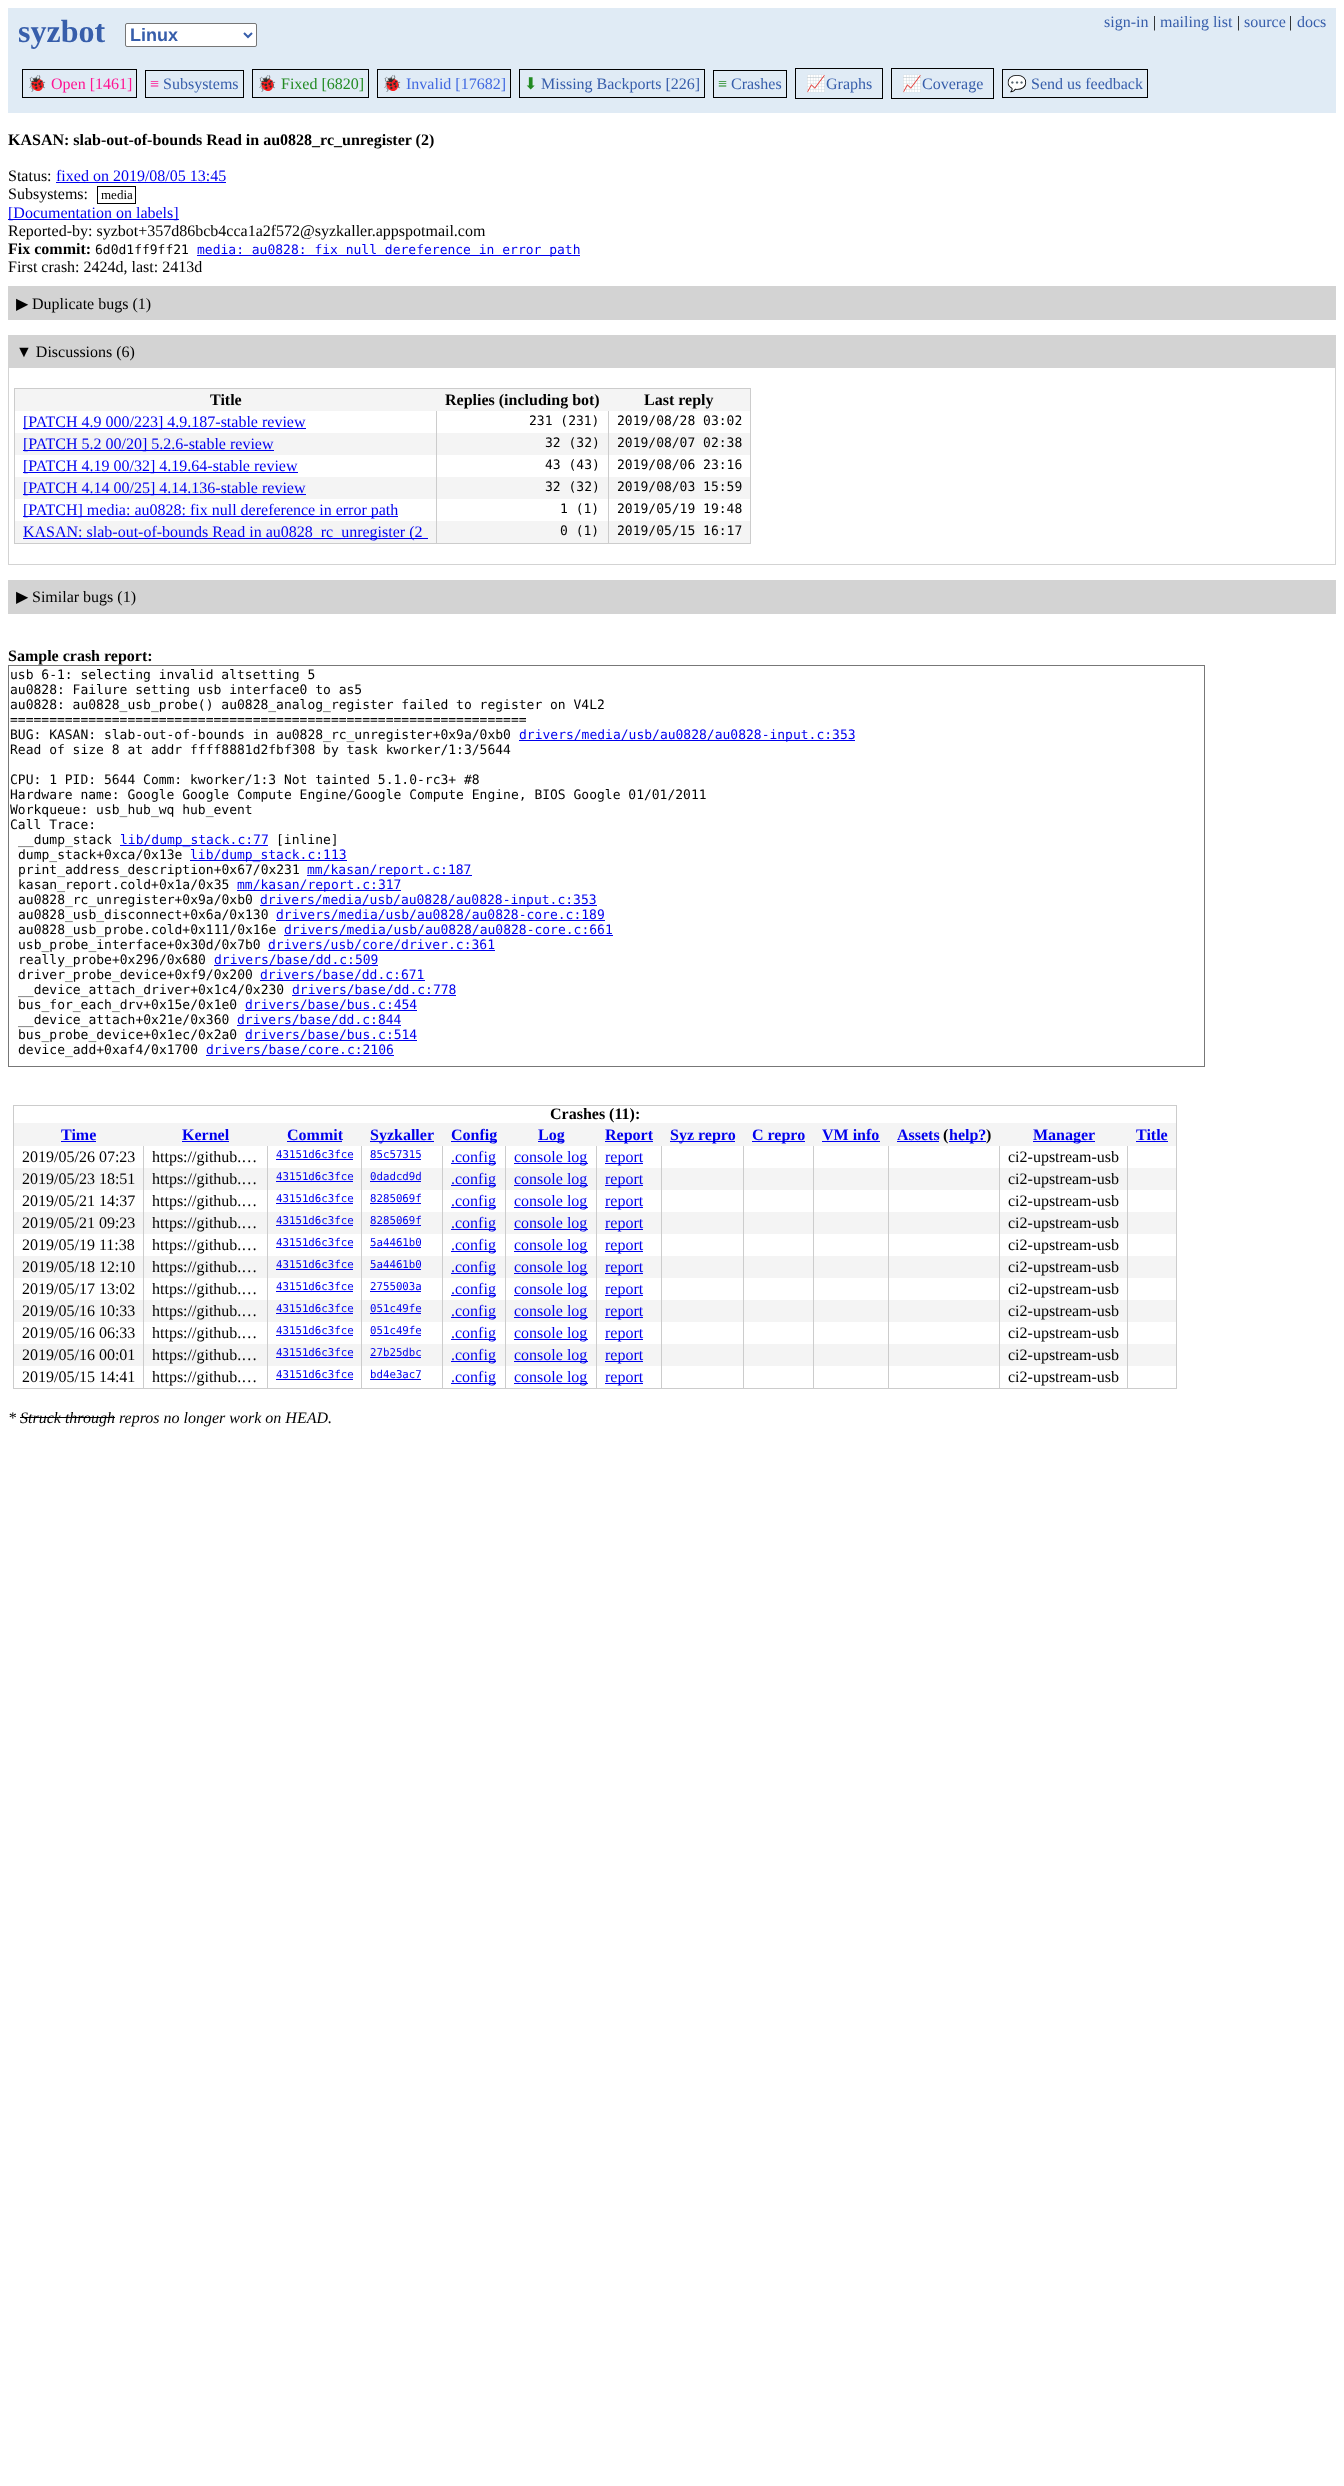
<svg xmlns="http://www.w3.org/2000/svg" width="1344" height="2486">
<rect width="100%" height="100%" fill="#fff"/>
<rect x="8" y="8" width="1328" height="105" fill="#e0ebf5"/>
<text x="18" y="42" style="font-family:Liberation Serif;font-size:32px;font-weight:bold;fill:#375eab">syzbot</text>
<rect x="125.5" y="23.5" width="131" height="23" rx="1.5" fill="#fff" stroke="#767676"/>
<path d="M244 33l4 4l4-4" fill="none" stroke="#375eab" stroke-width="2"/>
<text x="130" y="41" style="font-family:Liberation Sans;font-size:18px;font-weight:bold;fill:#375eab">Linux</text>
<text x="1104" y="27" style="font-family:Liberation Serif;font-size:16px;fill:#375eab">sign-in</text>
<text x="1153" y="27" style="font-family:Liberation Serif;font-size:16px;fill:#000">|</text>
<text x="1160" y="27" style="font-family:Liberation Serif;font-size:16px;fill:#375eab">mailing list</text>
<text x="1237" y="27" style="font-family:Liberation Serif;font-size:16px;fill:#000">|</text>
<text x="1244" y="27" style="font-family:Liberation Serif;font-size:16px;fill:#375eab">source</text>
<text x="1289" y="27" style="font-family:Liberation Serif;font-size:16px;fill:#000">|</text>
<text x="1297" y="27" style="font-family:Liberation Serif;font-size:16px;fill:#375eab">docs</text>
<rect x="22.5" y="69.5" width="114" height="28" fill="none" stroke="#000"/>
<text x="27" y="89" style="font-family:Noto Color Emoji;font-size:16px;fill:#ff1493">🐞</text>
<text x="51" y="89" style="font-family:Liberation Serif;font-size:16px;fill:#ff1493">Open [1461]</text>
<rect x="145.5" y="70.5" width="98" height="27" fill="none" stroke="#000"/>
<text x="150" y="89" style="font-family:Liberation Serif;font-size:16px;fill:#ff1493">≡</text>
<text x="163" y="89" style="font-family:Liberation Serif;font-size:16px;fill:#375eab">Subsystems</text>
<rect x="252.5" y="69.5" width="116" height="28" fill="none" stroke="#000"/>
<text x="257" y="89" style="font-family:Noto Color Emoji;font-size:16px;fill:#228b22">🐞</text>
<text x="281" y="89" style="font-family:Liberation Serif;font-size:16px;fill:#228b22">Fixed [6820]</text>
<rect x="377.5" y="69.5" width="133" height="28" fill="none" stroke="#000"/>
<text x="382" y="89" style="font-family:Noto Color Emoji;font-size:16px;fill:#4169e1">🐞</text>
<text x="406" y="89" style="font-family:Liberation Serif;font-size:16px;fill:#4169e1">Invalid [17682]</text>
<rect x="519.5" y="69.5" width="185" height="28" fill="none" stroke="#000"/>
<text x="524" y="89" style="font-family:DejaVu Sans;font-size:16px;fill:#228b22">⬇</text>
<text x="541" y="89" style="font-family:Liberation Serif;font-size:16px;fill:#375eab">Missing Backports [226]</text>
<rect x="713.5" y="70.5" width="73" height="27" fill="none" stroke="#000"/>
<text x="718" y="89" style="font-family:Liberation Serif;font-size:16px;fill:#228b22">≡</text>
<text x="731" y="89" style="font-family:Liberation Serif;font-size:16px;fill:#375eab">Crashes</text>
<rect x="795.5" y="68.5" width="87" height="30" fill="none" stroke="#000"/>
<text x="806" y="89" style="font-family:Noto Color Emoji;font-size:16px;fill:#ff8c00">📈</text>
<text x="826" y="89" style="font-family:Liberation Serif;font-size:16px;fill:#375eab">Graphs</text>
<rect x="891.5" y="68.5" width="102" height="30" fill="none" stroke="#000"/>
<text x="902" y="89" style="font-family:Noto Color Emoji;font-size:16px;fill:#ff8c00">📈</text>
<text x="922" y="89" style="font-family:Liberation Serif;font-size:16px;fill:#375eab">Coverage</text>
<rect x="1002.5" y="69.5" width="145" height="28" fill="none" stroke="#000"/>
<text x="1007" y="89" style="font-family:Noto Color Emoji;font-size:16px;fill:#228b22">💬</text>
<text x="1031" y="89" style="font-family:Liberation Serif;font-size:16px;fill:#375eab">Send us feedback</text>
<text x="8" y="145" style="font-family:Liberation Serif;font-size:16px;font-weight:bold;fill:#000">KASAN: slab-out-of-bounds Read in au0828_rc_unregister (2)</text>
<text x="8" y="181" style="font-family:Liberation Serif;font-size:16px;fill:#000">Status:</text>
<text x="56" y="181" style="font-family:Liberation Serif;font-size:16px;fill:#00e">fixed on 2019/08/05 13:45</text>
<rect x="56" y="182" width="170" height="1" fill="#00e"/>
<text x="8" y="199" style="font-family:Liberation Serif;font-size:16px;fill:#000">Subsystems:</text>
<rect x="97.5" y="186.5" width="38" height="17" fill="none" stroke="#000"/>
<text x="101" y="199" style="font-family:Liberation Serif;font-size:13px;fill:#000">media</text>
<rect x="8" y="219" width="171" height="1" fill="#00e"/>
<text x="8" y="218" style="font-family:Liberation Serif;font-size:16px;fill:#00e">[Documentation on labels]</text>
<text x="8" y="236" style="font-family:Liberation Serif;font-size:16px;fill:#000">Reported-by: syzbot+357d86bcb4cca1a2f572@syzkaller.appspotmail.com</text>
<text x="8" y="254" style="font-family:Liberation Serif;font-size:16px;font-weight:bold;fill:#000">Fix commit:</text>
<text x="95" y="254" style="font-family:DejaVu Sans Mono;font-size:13px;fill:#000">6d0d1ff9ff21</text>
<rect x="197" y="255" width="383" height="1" fill="#00e"/>
<text x="197" y="254" style="font-family:DejaVu Sans Mono;font-size:13px;fill:#00e">media: au0828: fix null dereference in error path</text>
<text x="8" y="272" style="font-family:Liberation Serif;font-size:16px;fill:#000">First crash: 2424d, last: 2413d</text>
<rect x="8.5" y="286.5" width="1327" height="33" fill="none" stroke="#d3d3d3"/>
<rect x="9" y="287" width="1326" height="32" fill="#d3d3d3"/>
<text x="16" y="309" style="font-family:DejaVu Sans;font-size:16px;fill:#000">▶</text>
<text x="32" y="309" style="font-family:Liberation Serif;font-size:16px;fill:#000">Duplicate bugs (1)</text>
<rect x="8.5" y="335.5" width="1327" height="229" fill="none" stroke="#d3d3d3"/>
<rect x="9" y="336" width="1326" height="32" fill="#d3d3d3"/>
<text x="16" y="357" style="font-family:Liberation Serif;font-size:16px;fill:#000">▼ Discussions (6)</text>
<rect x="14" y="388" width="737" height="1" fill="#ccc"/>
<rect x="750" y="388" width="1" height="156" fill="#ccc"/>
<rect x="14" y="543" width="737" height="1" fill="#ccc"/>
<rect x="14" y="388" width="1" height="156" fill="#ccc"/>
<rect x="15" y="433" width="735" height="22" fill="#f4f4f4"/>
<rect x="15" y="477" width="735" height="22" fill="#f4f4f4"/>
<rect x="15" y="521" width="735" height="22" fill="#f4f4f4"/>
<rect x="436" y="410" width="1" height="133" fill="#ccc"/>
<rect x="608" y="410" width="1" height="133" fill="#ccc"/>
<rect x="15" y="389" width="735" height="22" fill="#f4f4f4"/>
<text x="210" y="405" style="font-family:Liberation Serif;font-size:16px;font-weight:bold;fill:#000">Title</text>
<text x="445" y="405" style="font-family:Liberation Serif;font-size:16px;font-weight:bold;fill:#000">Replies (including bot)</text>
<text x="644" y="405" style="font-family:Liberation Serif;font-size:16px;font-weight:bold;fill:#000">Last reply</text>
<rect x="23" y="428" width="283" height="1" fill="#00e"/>
<text x="23" y="427" style="font-family:Liberation Serif;font-size:16px;fill:#00e">[PATCH 4.9 000/223] 4.9.187-stable review</text>
<text x="529" y="425" style="font-family:DejaVu Sans Mono;font-size:13px;fill:#000">231 (231)</text>
<text x="617" y="425" style="font-family:DejaVu Sans Mono;font-size:13px;fill:#000">2019/08/28 03:02</text>
<rect x="23" y="450" width="251" height="1" fill="#00e"/>
<text x="23" y="449" style="font-family:Liberation Serif;font-size:16px;fill:#00e">[PATCH 5.2 00/20] 5.2.6-stable review</text>
<text x="545" y="447" style="font-family:DejaVu Sans Mono;font-size:13px;fill:#000">32 (32)</text>
<text x="617" y="447" style="font-family:DejaVu Sans Mono;font-size:13px;fill:#000">2019/08/07 02:38</text>
<rect x="23" y="472" width="275" height="1" fill="#00e"/>
<text x="23" y="471" style="font-family:Liberation Serif;font-size:16px;fill:#00e">[PATCH 4.19 00/32] 4.19.64-stable review</text>
<text x="545" y="469" style="font-family:DejaVu Sans Mono;font-size:13px;fill:#000">43 (43)</text>
<text x="617" y="469" style="font-family:DejaVu Sans Mono;font-size:13px;fill:#000">2019/08/06 23:16</text>
<rect x="23" y="494" width="283" height="1" fill="#00e"/>
<text x="23" y="493" style="font-family:Liberation Serif;font-size:16px;fill:#00e">[PATCH 4.14 00/25] 4.14.136-stable review</text>
<text x="545" y="491" style="font-family:DejaVu Sans Mono;font-size:13px;fill:#000">32 (32)</text>
<text x="617" y="491" style="font-family:DejaVu Sans Mono;font-size:13px;fill:#000">2019/08/03 15:59</text>
<rect x="23" y="516" width="375" height="1" fill="#00e"/>
<text x="23" y="515" style="font-family:Liberation Serif;font-size:16px;fill:#00e">[PATCH] media: au0828: fix null dereference in error path</text>
<text x="560" y="513" style="font-family:DejaVu Sans Mono;font-size:13px;fill:#000">1 (1)</text>
<text x="617" y="513" style="font-family:DejaVu Sans Mono;font-size:13px;fill:#000">2019/05/19 19:48</text>
<rect x="23" y="538" width="405" height="1" fill="#00e"/>
<text x="23" y="537" style="font-family:Liberation Serif;font-size:16px;fill:#00e">KASAN: slab-out-of-bounds Read in au0828_rc_unregister (2</text>
<text x="560" y="535" style="font-family:DejaVu Sans Mono;font-size:13px;fill:#000">0 (1)</text>
<text x="617" y="535" style="font-family:DejaVu Sans Mono;font-size:13px;fill:#000">2019/05/15 16:17</text>
<rect x="8.5" y="580.5" width="1327" height="33" fill="none" stroke="#d3d3d3"/>
<rect x="9" y="581" width="1326" height="32" fill="#d3d3d3"/>
<text x="16" y="602" style="font-family:DejaVu Sans;font-size:16px;fill:#000">▶</text>
<text x="32" y="602" style="font-family:Liberation Serif;font-size:16px;fill:#000">Similar bugs (1)</text>
<text x="8" y="661" style="font-family:Liberation Serif;font-size:16px;font-weight:bold;fill:#000">Sample crash report:</text>
<rect x="8.5" y="665.5" width="1196" height="401" fill="none" stroke="#777"/>
<text x="10" y="679" style="font-family:DejaVu Sans Mono;font-size:13px;fill:#000">usb 6-1: selecting invalid altsetting 5</text>
<text x="10" y="694" style="font-family:DejaVu Sans Mono;font-size:13px;fill:#000">au0828: Failure setting usb interface0 to as5</text>
<text x="10" y="709" style="font-family:DejaVu Sans Mono;font-size:13px;fill:#000">au0828: au0828_usb_probe() au0828_analog_register failed to register on V4L2</text>
<text x="10" y="724" style="font-family:DejaVu Sans Mono;font-size:13px;fill:#000">==================================================================</text>
<text x="10" y="739" style="font-family:DejaVu Sans Mono;font-size:13px;fill:#000">BUG: KASAN: slab-out-of-bounds in au0828_rc_unregister+0x9a/0xb0</text>
<rect x="519" y="740" width="336" height="1" fill="#00e"/>
<text x="519" y="739" style="font-family:DejaVu Sans Mono;font-size:13px;fill:#00e">drivers/media/usb/au0828/au0828-input.c:353</text>
<text x="10" y="754" style="font-family:DejaVu Sans Mono;font-size:13px;fill:#000">Read of size 8 at addr ffff8881d2fbf308 by task kworker/1:3/5644</text>
<text x="10" y="784" style="font-family:DejaVu Sans Mono;font-size:13px;fill:#000">CPU: 1 PID: 5644 Comm: kworker/1:3 Not tainted 5.1.0-rc3+ #8</text>
<text x="10" y="799" style="font-family:DejaVu Sans Mono;font-size:13px;fill:#000">Hardware name: Google Google Compute Engine/Google Compute Engine, BIOS Google 01/01/2011</text>
<text x="10" y="814" style="font-family:DejaVu Sans Mono;font-size:13px;fill:#000">Workqueue: usb_hub_wq hub_event</text>
<text x="10" y="829" style="font-family:DejaVu Sans Mono;font-size:13px;fill:#000">Call Trace:</text>
<text x="18" y="844" style="font-family:DejaVu Sans Mono;font-size:13px;fill:#000">__dump_stack</text>
<rect x="120" y="845" width="148" height="1" fill="#00e"/>
<text x="120" y="844" style="font-family:DejaVu Sans Mono;font-size:13px;fill:#00e">lib/dump_stack.c:77</text>
<text x="276" y="844" style="font-family:DejaVu Sans Mono;font-size:13px;fill:#000">[inline]</text>
<text x="18" y="859" style="font-family:DejaVu Sans Mono;font-size:13px;fill:#000">dump_stack+0xca/0x13e</text>
<rect x="190" y="860" width="157" height="1" fill="#00e"/>
<text x="190" y="859" style="font-family:DejaVu Sans Mono;font-size:13px;fill:#00e">lib/dump_stack.c:113</text>
<text x="18" y="874" style="font-family:DejaVu Sans Mono;font-size:13px;fill:#000">print_address_description+0x67/0x231</text>
<rect x="307" y="875" width="165" height="1" fill="#00e"/>
<text x="307" y="874" style="font-family:DejaVu Sans Mono;font-size:13px;fill:#00e">mm/kasan/report.c:187</text>
<text x="18" y="889" style="font-family:DejaVu Sans Mono;font-size:13px;fill:#000">kasan_report.cold+0x1a/0x35</text>
<rect x="237" y="890" width="164" height="1" fill="#00e"/>
<text x="237" y="889" style="font-family:DejaVu Sans Mono;font-size:13px;fill:#00e">mm/kasan/report.c:317</text>
<text x="18" y="904" style="font-family:DejaVu Sans Mono;font-size:13px;fill:#000">au0828_rc_unregister+0x9a/0xb0</text>
<rect x="260" y="905" width="337" height="1" fill="#00e"/>
<text x="260" y="904" style="font-family:DejaVu Sans Mono;font-size:13px;fill:#00e">drivers/media/usb/au0828/au0828-input.c:353</text>
<text x="18" y="919" style="font-family:DejaVu Sans Mono;font-size:13px;fill:#000">au0828_usb_disconnect+0x6a/0x130</text>
<rect x="276" y="920" width="329" height="1" fill="#00e"/>
<text x="276" y="919" style="font-family:DejaVu Sans Mono;font-size:13px;fill:#00e">drivers/media/usb/au0828/au0828-core.c:189</text>
<text x="18" y="934" style="font-family:DejaVu Sans Mono;font-size:13px;fill:#000">au0828_usb_probe.cold+0x111/0x16e</text>
<rect x="284" y="935" width="329" height="1" fill="#00e"/>
<text x="284" y="934" style="font-family:DejaVu Sans Mono;font-size:13px;fill:#00e">drivers/media/usb/au0828/au0828-core.c:661</text>
<text x="18" y="949" style="font-family:DejaVu Sans Mono;font-size:13px;fill:#000">usb_probe_interface+0x30d/0x7b0</text>
<rect x="268" y="950" width="227" height="1" fill="#00e"/>
<text x="268" y="949" style="font-family:DejaVu Sans Mono;font-size:13px;fill:#00e">drivers/usb/core/driver.c:361</text>
<text x="18" y="964" style="font-family:DejaVu Sans Mono;font-size:13px;fill:#000">really_probe+0x296/0x680</text>
<rect x="214" y="965" width="164" height="1" fill="#00e"/>
<text x="214" y="964" style="font-family:DejaVu Sans Mono;font-size:13px;fill:#00e">drivers/base/dd.c:509</text>
<text x="18" y="979" style="font-family:DejaVu Sans Mono;font-size:13px;fill:#000">driver_probe_device+0xf9/0x200</text>
<rect x="260" y="980" width="165" height="1" fill="#00e"/>
<text x="260" y="979" style="font-family:DejaVu Sans Mono;font-size:13px;fill:#00e">drivers/base/dd.c:671</text>
<text x="18" y="994" style="font-family:DejaVu Sans Mono;font-size:13px;fill:#000">__device_attach_driver+0x1c4/0x230</text>
<rect x="292" y="995" width="164" height="1" fill="#00e"/>
<text x="292" y="994" style="font-family:DejaVu Sans Mono;font-size:13px;fill:#00e">drivers/base/dd.c:778</text>
<text x="18" y="1009" style="font-family:DejaVu Sans Mono;font-size:13px;fill:#000">bus_for_each_drv+0x15e/0x1e0</text>
<rect x="245" y="1010" width="172" height="1" fill="#00e"/>
<text x="245" y="1009" style="font-family:DejaVu Sans Mono;font-size:13px;fill:#00e">drivers/base/bus.c:454</text>
<text x="18" y="1024" style="font-family:DejaVu Sans Mono;font-size:13px;fill:#000">__device_attach+0x21e/0x360</text>
<rect x="237" y="1025" width="164" height="1" fill="#00e"/>
<text x="237" y="1024" style="font-family:DejaVu Sans Mono;font-size:13px;fill:#00e">drivers/base/dd.c:844</text>
<text x="18" y="1039" style="font-family:DejaVu Sans Mono;font-size:13px;fill:#000">bus_probe_device+0x1ec/0x2a0</text>
<rect x="245" y="1040" width="172" height="1" fill="#00e"/>
<text x="245" y="1039" style="font-family:DejaVu Sans Mono;font-size:13px;fill:#00e">drivers/base/bus.c:514</text>
<text x="18" y="1054" style="font-family:DejaVu Sans Mono;font-size:13px;fill:#000">device_add+0xaf4/0x1700</text>
<rect x="206" y="1055" width="188" height="1" fill="#00e"/>
<text x="206" y="1054" style="font-family:DejaVu Sans Mono;font-size:13px;fill:#00e">drivers/base/core.c:2106</text>
<rect x="13" y="1105" width="1164" height="1" fill="#ccc"/>
<rect x="1176" y="1105" width="1" height="284" fill="#ccc"/>
<rect x="13" y="1388" width="1164" height="1" fill="#ccc"/>
<rect x="13" y="1105" width="1" height="284" fill="#ccc"/>
<text x="550" y="1119" style="font-family:Liberation Serif;font-size:16px;font-weight:bold;fill:#000">Crashes (11):</text>
<rect x="14" y="1168" width="1162" height="22" fill="#f4f4f4"/>
<rect x="14" y="1212" width="1162" height="22" fill="#f4f4f4"/>
<rect x="14" y="1256" width="1162" height="22" fill="#f4f4f4"/>
<rect x="14" y="1300" width="1162" height="22" fill="#f4f4f4"/>
<rect x="14" y="1344" width="1162" height="22" fill="#f4f4f4"/>
<rect x="143" y="1145" width="1" height="243" fill="#ccc"/>
<rect x="267" y="1145" width="1" height="243" fill="#ccc"/>
<rect x="361" y="1145" width="1" height="243" fill="#ccc"/>
<rect x="442" y="1145" width="1" height="243" fill="#ccc"/>
<rect x="505" y="1145" width="1" height="243" fill="#ccc"/>
<rect x="596" y="1145" width="1" height="243" fill="#ccc"/>
<rect x="661" y="1145" width="1" height="243" fill="#ccc"/>
<rect x="743" y="1145" width="1" height="243" fill="#ccc"/>
<rect x="813" y="1145" width="1" height="243" fill="#ccc"/>
<rect x="888" y="1145" width="1" height="243" fill="#ccc"/>
<rect x="999" y="1145" width="1" height="243" fill="#ccc"/>
<rect x="1127" y="1145" width="1" height="243" fill="#ccc"/>
<rect x="14" y="1123" width="1162" height="23" fill="#f4f4f4"/>
<text x="61" y="1140" style="font-family:Liberation Serif;font-size:16px;font-weight:bold;fill:#00e">Time</text>
<rect x="61" y="1141" width="35" height="1" fill="#00e"/>
<text x="182" y="1140" style="font-family:Liberation Serif;font-size:16px;font-weight:bold;fill:#00e">Kernel</text>
<rect x="182" y="1141" width="47" height="1" fill="#00e"/>
<text x="287" y="1140" style="font-family:Liberation Serif;font-size:16px;font-weight:bold;fill:#00e">Commit</text>
<rect x="287" y="1141" width="55" height="1" fill="#00e"/>
<rect x="370" y="1141" width="64" height="1" fill="#00e"/>
<text x="370" y="1140" style="font-family:Liberation Serif;font-size:16px;font-weight:bold;fill:#00e">Syzkaller</text>
<rect x="451" y="1141" width="46" height="1" fill="#00e"/>
<text x="451" y="1140" style="font-family:Liberation Serif;font-size:16px;font-weight:bold;fill:#00e">Config</text>
<rect x="538" y="1141" width="26" height="1" fill="#00e"/>
<text x="538" y="1140" style="font-family:Liberation Serif;font-size:16px;font-weight:bold;fill:#00e">Log</text>
<rect x="605" y="1141" width="48" height="1" fill="#00e"/>
<text x="605" y="1140" style="font-family:Liberation Serif;font-size:16px;font-weight:bold;fill:#00e">Report</text>
<rect x="670" y="1141" width="65" height="1" fill="#00e"/>
<text x="670" y="1140" style="font-family:Liberation Serif;font-size:16px;font-weight:bold;fill:#00e">Syz repro</text>
<rect x="752" y="1141" width="53" height="1" fill="#00e"/>
<text x="752" y="1140" style="font-family:Liberation Serif;font-size:16px;font-weight:bold;fill:#00e">C repro</text>
<text x="822" y="1140" style="font-family:Liberation Serif;font-size:16px;font-weight:bold;fill:#00e">VM info</text>
<rect x="822" y="1141" width="58" height="1" fill="#00e"/>
<text x="897" y="1140" style="font-family:Liberation Serif;font-size:16px;font-weight:bold;fill:#00e">Assets</text>
<rect x="897" y="1141" width="42" height="1" fill="#00e"/>
<text x="943" y="1140" style="font-family:Liberation Serif;font-size:16px;font-weight:bold;fill:#000">(</text>
<rect x="949" y="1141" width="37" height="1" fill="#00e"/>
<text x="949" y="1140" style="font-family:Liberation Serif;font-size:16px;font-weight:bold;fill:#00e">help?</text>
<text x="986" y="1140" style="font-family:Liberation Serif;font-size:16px;font-weight:bold;fill:#000">)</text>
<rect x="1033" y="1141" width="62" height="1" fill="#00e"/>
<text x="1033" y="1140" style="font-family:Liberation Serif;font-size:16px;font-weight:bold;fill:#00e">Manager</text>
<text x="1136" y="1140" style="font-family:Liberation Serif;font-size:16px;font-weight:bold;fill:#00e">Title</text>
<rect x="1136" y="1141" width="32" height="1" fill="#00e"/>
<text x="22" y="1162" style="font-family:Liberation Serif;font-size:16px;fill:#000">2019/05/26 07:23</text>
<text x="152" y="1162" style="font-family:Liberation Serif;font-size:16px;fill:#000">https://github.…</text>
<text x="276" y="1158" style="font-family:DejaVu Sans Mono;font-size:10.75px;fill:#00e">43151d6c3fce</text>
<rect x="276" y="1159" width="77" height="1" fill="#00e"/>
<text x="370" y="1158" style="font-family:DejaVu Sans Mono;font-size:10.75px;fill:#00e">85c57315</text>
<rect x="370" y="1159" width="51" height="1" fill="#00e"/>
<rect x="451" y="1163" width="45" height="1" fill="#00e"/>
<text x="451" y="1162" style="font-family:Liberation Serif;font-size:16px;fill:#00e">.config</text>
<rect x="514" y="1163" width="74" height="1" fill="#00e"/>
<text x="514" y="1162" style="font-family:Liberation Serif;font-size:16px;fill:#00e">console log</text>
<rect x="605" y="1163" width="38" height="1" fill="#00e"/>
<text x="605" y="1162" style="font-family:Liberation Serif;font-size:16px;fill:#00e">report</text>
<text x="1008" y="1162" style="font-family:Liberation Serif;font-size:16px;fill:#000">ci2-upstream-usb</text>
<text x="22" y="1184" style="font-family:Liberation Serif;font-size:16px;fill:#000">2019/05/23 18:51</text>
<text x="152" y="1184" style="font-family:Liberation Serif;font-size:16px;fill:#000">https://github.…</text>
<text x="276" y="1180" style="font-family:DejaVu Sans Mono;font-size:10.75px;fill:#00e">43151d6c3fce</text>
<rect x="276" y="1181" width="77" height="1" fill="#00e"/>
<text x="370" y="1180" style="font-family:DejaVu Sans Mono;font-size:10.75px;fill:#00e">0dadcd9d</text>
<rect x="370" y="1181" width="51" height="1" fill="#00e"/>
<rect x="451" y="1185" width="45" height="1" fill="#00e"/>
<text x="451" y="1184" style="font-family:Liberation Serif;font-size:16px;fill:#00e">.config</text>
<rect x="514" y="1185" width="74" height="1" fill="#00e"/>
<text x="514" y="1184" style="font-family:Liberation Serif;font-size:16px;fill:#00e">console log</text>
<rect x="605" y="1185" width="38" height="1" fill="#00e"/>
<text x="605" y="1184" style="font-family:Liberation Serif;font-size:16px;fill:#00e">report</text>
<text x="1008" y="1184" style="font-family:Liberation Serif;font-size:16px;fill:#000">ci2-upstream-usb</text>
<text x="22" y="1206" style="font-family:Liberation Serif;font-size:16px;fill:#000">2019/05/21 14:37</text>
<text x="152" y="1206" style="font-family:Liberation Serif;font-size:16px;fill:#000">https://github.…</text>
<text x="276" y="1202" style="font-family:DejaVu Sans Mono;font-size:10.75px;fill:#00e">43151d6c3fce</text>
<rect x="276" y="1203" width="77" height="1" fill="#00e"/>
<text x="370" y="1202" style="font-family:DejaVu Sans Mono;font-size:10.75px;fill:#00e">8285069f</text>
<rect x="370" y="1203" width="51" height="1" fill="#00e"/>
<rect x="451" y="1207" width="45" height="1" fill="#00e"/>
<text x="451" y="1206" style="font-family:Liberation Serif;font-size:16px;fill:#00e">.config</text>
<rect x="514" y="1207" width="74" height="1" fill="#00e"/>
<text x="514" y="1206" style="font-family:Liberation Serif;font-size:16px;fill:#00e">console log</text>
<rect x="605" y="1207" width="38" height="1" fill="#00e"/>
<text x="605" y="1206" style="font-family:Liberation Serif;font-size:16px;fill:#00e">report</text>
<text x="1008" y="1206" style="font-family:Liberation Serif;font-size:16px;fill:#000">ci2-upstream-usb</text>
<text x="22" y="1228" style="font-family:Liberation Serif;font-size:16px;fill:#000">2019/05/21 09:23</text>
<text x="152" y="1228" style="font-family:Liberation Serif;font-size:16px;fill:#000">https://github.…</text>
<text x="276" y="1224" style="font-family:DejaVu Sans Mono;font-size:10.75px;fill:#00e">43151d6c3fce</text>
<rect x="276" y="1225" width="77" height="1" fill="#00e"/>
<text x="370" y="1224" style="font-family:DejaVu Sans Mono;font-size:10.75px;fill:#00e">8285069f</text>
<rect x="370" y="1225" width="51" height="1" fill="#00e"/>
<rect x="451" y="1229" width="45" height="1" fill="#00e"/>
<text x="451" y="1228" style="font-family:Liberation Serif;font-size:16px;fill:#00e">.config</text>
<rect x="514" y="1229" width="74" height="1" fill="#00e"/>
<text x="514" y="1228" style="font-family:Liberation Serif;font-size:16px;fill:#00e">console log</text>
<rect x="605" y="1229" width="38" height="1" fill="#00e"/>
<text x="605" y="1228" style="font-family:Liberation Serif;font-size:16px;fill:#00e">report</text>
<text x="1008" y="1228" style="font-family:Liberation Serif;font-size:16px;fill:#000">ci2-upstream-usb</text>
<text x="22" y="1250" style="font-family:Liberation Serif;font-size:16px;fill:#000">2019/05/19 11:38</text>
<text x="152" y="1250" style="font-family:Liberation Serif;font-size:16px;fill:#000">https://github.…</text>
<text x="276" y="1246" style="font-family:DejaVu Sans Mono;font-size:10.75px;fill:#00e">43151d6c3fce</text>
<rect x="276" y="1247" width="77" height="1" fill="#00e"/>
<text x="370" y="1246" style="font-family:DejaVu Sans Mono;font-size:10.75px;fill:#00e">5a4461b0</text>
<rect x="370" y="1247" width="51" height="1" fill="#00e"/>
<rect x="451" y="1251" width="45" height="1" fill="#00e"/>
<text x="451" y="1250" style="font-family:Liberation Serif;font-size:16px;fill:#00e">.config</text>
<rect x="514" y="1251" width="74" height="1" fill="#00e"/>
<text x="514" y="1250" style="font-family:Liberation Serif;font-size:16px;fill:#00e">console log</text>
<rect x="605" y="1251" width="38" height="1" fill="#00e"/>
<text x="605" y="1250" style="font-family:Liberation Serif;font-size:16px;fill:#00e">report</text>
<text x="1008" y="1250" style="font-family:Liberation Serif;font-size:16px;fill:#000">ci2-upstream-usb</text>
<text x="22" y="1272" style="font-family:Liberation Serif;font-size:16px;fill:#000">2019/05/18 12:10</text>
<text x="152" y="1272" style="font-family:Liberation Serif;font-size:16px;fill:#000">https://github.…</text>
<text x="276" y="1268" style="font-family:DejaVu Sans Mono;font-size:10.75px;fill:#00e">43151d6c3fce</text>
<rect x="276" y="1269" width="77" height="1" fill="#00e"/>
<text x="370" y="1268" style="font-family:DejaVu Sans Mono;font-size:10.75px;fill:#00e">5a4461b0</text>
<rect x="370" y="1269" width="51" height="1" fill="#00e"/>
<rect x="451" y="1273" width="45" height="1" fill="#00e"/>
<text x="451" y="1272" style="font-family:Liberation Serif;font-size:16px;fill:#00e">.config</text>
<rect x="514" y="1273" width="74" height="1" fill="#00e"/>
<text x="514" y="1272" style="font-family:Liberation Serif;font-size:16px;fill:#00e">console log</text>
<rect x="605" y="1273" width="38" height="1" fill="#00e"/>
<text x="605" y="1272" style="font-family:Liberation Serif;font-size:16px;fill:#00e">report</text>
<text x="1008" y="1272" style="font-family:Liberation Serif;font-size:16px;fill:#000">ci2-upstream-usb</text>
<text x="22" y="1294" style="font-family:Liberation Serif;font-size:16px;fill:#000">2019/05/17 13:02</text>
<text x="152" y="1294" style="font-family:Liberation Serif;font-size:16px;fill:#000">https://github.…</text>
<text x="276" y="1290" style="font-family:DejaVu Sans Mono;font-size:10.75px;fill:#00e">43151d6c3fce</text>
<rect x="276" y="1291" width="77" height="1" fill="#00e"/>
<text x="370" y="1290" style="font-family:DejaVu Sans Mono;font-size:10.75px;fill:#00e">2755003a</text>
<rect x="370" y="1291" width="51" height="1" fill="#00e"/>
<rect x="451" y="1295" width="45" height="1" fill="#00e"/>
<text x="451" y="1294" style="font-family:Liberation Serif;font-size:16px;fill:#00e">.config</text>
<rect x="514" y="1295" width="74" height="1" fill="#00e"/>
<text x="514" y="1294" style="font-family:Liberation Serif;font-size:16px;fill:#00e">console log</text>
<rect x="605" y="1295" width="38" height="1" fill="#00e"/>
<text x="605" y="1294" style="font-family:Liberation Serif;font-size:16px;fill:#00e">report</text>
<text x="1008" y="1294" style="font-family:Liberation Serif;font-size:16px;fill:#000">ci2-upstream-usb</text>
<text x="22" y="1316" style="font-family:Liberation Serif;font-size:16px;fill:#000">2019/05/16 10:33</text>
<text x="152" y="1316" style="font-family:Liberation Serif;font-size:16px;fill:#000">https://github.…</text>
<text x="276" y="1312" style="font-family:DejaVu Sans Mono;font-size:10.75px;fill:#00e">43151d6c3fce</text>
<rect x="276" y="1313" width="77" height="1" fill="#00e"/>
<text x="370" y="1312" style="font-family:DejaVu Sans Mono;font-size:10.75px;fill:#00e">051c49fe</text>
<rect x="370" y="1313" width="51" height="1" fill="#00e"/>
<rect x="451" y="1317" width="45" height="1" fill="#00e"/>
<text x="451" y="1316" style="font-family:Liberation Serif;font-size:16px;fill:#00e">.config</text>
<rect x="514" y="1317" width="74" height="1" fill="#00e"/>
<text x="514" y="1316" style="font-family:Liberation Serif;font-size:16px;fill:#00e">console log</text>
<rect x="605" y="1317" width="38" height="1" fill="#00e"/>
<text x="605" y="1316" style="font-family:Liberation Serif;font-size:16px;fill:#00e">report</text>
<text x="1008" y="1316" style="font-family:Liberation Serif;font-size:16px;fill:#000">ci2-upstream-usb</text>
<text x="22" y="1338" style="font-family:Liberation Serif;font-size:16px;fill:#000">2019/05/16 06:33</text>
<text x="152" y="1338" style="font-family:Liberation Serif;font-size:16px;fill:#000">https://github.…</text>
<text x="276" y="1334" style="font-family:DejaVu Sans Mono;font-size:10.75px;fill:#00e">43151d6c3fce</text>
<rect x="276" y="1335" width="77" height="1" fill="#00e"/>
<text x="370" y="1334" style="font-family:DejaVu Sans Mono;font-size:10.75px;fill:#00e">051c49fe</text>
<rect x="370" y="1335" width="51" height="1" fill="#00e"/>
<rect x="451" y="1339" width="45" height="1" fill="#00e"/>
<text x="451" y="1338" style="font-family:Liberation Serif;font-size:16px;fill:#00e">.config</text>
<rect x="514" y="1339" width="74" height="1" fill="#00e"/>
<text x="514" y="1338" style="font-family:Liberation Serif;font-size:16px;fill:#00e">console log</text>
<rect x="605" y="1339" width="38" height="1" fill="#00e"/>
<text x="605" y="1338" style="font-family:Liberation Serif;font-size:16px;fill:#00e">report</text>
<text x="1008" y="1338" style="font-family:Liberation Serif;font-size:16px;fill:#000">ci2-upstream-usb</text>
<text x="22" y="1360" style="font-family:Liberation Serif;font-size:16px;fill:#000">2019/05/16 00:01</text>
<text x="152" y="1360" style="font-family:Liberation Serif;font-size:16px;fill:#000">https://github.…</text>
<text x="276" y="1356" style="font-family:DejaVu Sans Mono;font-size:10.75px;fill:#00e">43151d6c3fce</text>
<rect x="276" y="1357" width="77" height="1" fill="#00e"/>
<text x="370" y="1356" style="font-family:DejaVu Sans Mono;font-size:10.75px;fill:#00e">27b25dbc</text>
<rect x="370" y="1357" width="51" height="1" fill="#00e"/>
<rect x="451" y="1361" width="45" height="1" fill="#00e"/>
<text x="451" y="1360" style="font-family:Liberation Serif;font-size:16px;fill:#00e">.config</text>
<rect x="514" y="1361" width="74" height="1" fill="#00e"/>
<text x="514" y="1360" style="font-family:Liberation Serif;font-size:16px;fill:#00e">console log</text>
<rect x="605" y="1361" width="38" height="1" fill="#00e"/>
<text x="605" y="1360" style="font-family:Liberation Serif;font-size:16px;fill:#00e">report</text>
<text x="1008" y="1360" style="font-family:Liberation Serif;font-size:16px;fill:#000">ci2-upstream-usb</text>
<text x="22" y="1382" style="font-family:Liberation Serif;font-size:16px;fill:#000">2019/05/15 14:41</text>
<text x="152" y="1382" style="font-family:Liberation Serif;font-size:16px;fill:#000">https://github.…</text>
<text x="276" y="1378" style="font-family:DejaVu Sans Mono;font-size:10.75px;fill:#00e">43151d6c3fce</text>
<rect x="276" y="1379" width="77" height="1" fill="#00e"/>
<text x="370" y="1378" style="font-family:DejaVu Sans Mono;font-size:10.75px;fill:#00e">bd4e3ac7</text>
<rect x="370" y="1379" width="51" height="1" fill="#00e"/>
<rect x="451" y="1383" width="45" height="1" fill="#00e"/>
<text x="451" y="1382" style="font-family:Liberation Serif;font-size:16px;fill:#00e">.config</text>
<rect x="514" y="1383" width="74" height="1" fill="#00e"/>
<text x="514" y="1382" style="font-family:Liberation Serif;font-size:16px;fill:#00e">console log</text>
<rect x="605" y="1383" width="38" height="1" fill="#00e"/>
<text x="605" y="1382" style="font-family:Liberation Serif;font-size:16px;fill:#00e">report</text>
<text x="1008" y="1382" style="font-family:Liberation Serif;font-size:16px;fill:#000">ci2-upstream-usb</text>
<text x="8" y="1423" style="font-family:Liberation Serif;font-size:16px;font-style:italic;fill:#000">* Struck through repros no longer work on HEAD.</text>
<rect x="20" y="1417" width="95" height="1" fill="#000"/>
</svg>
